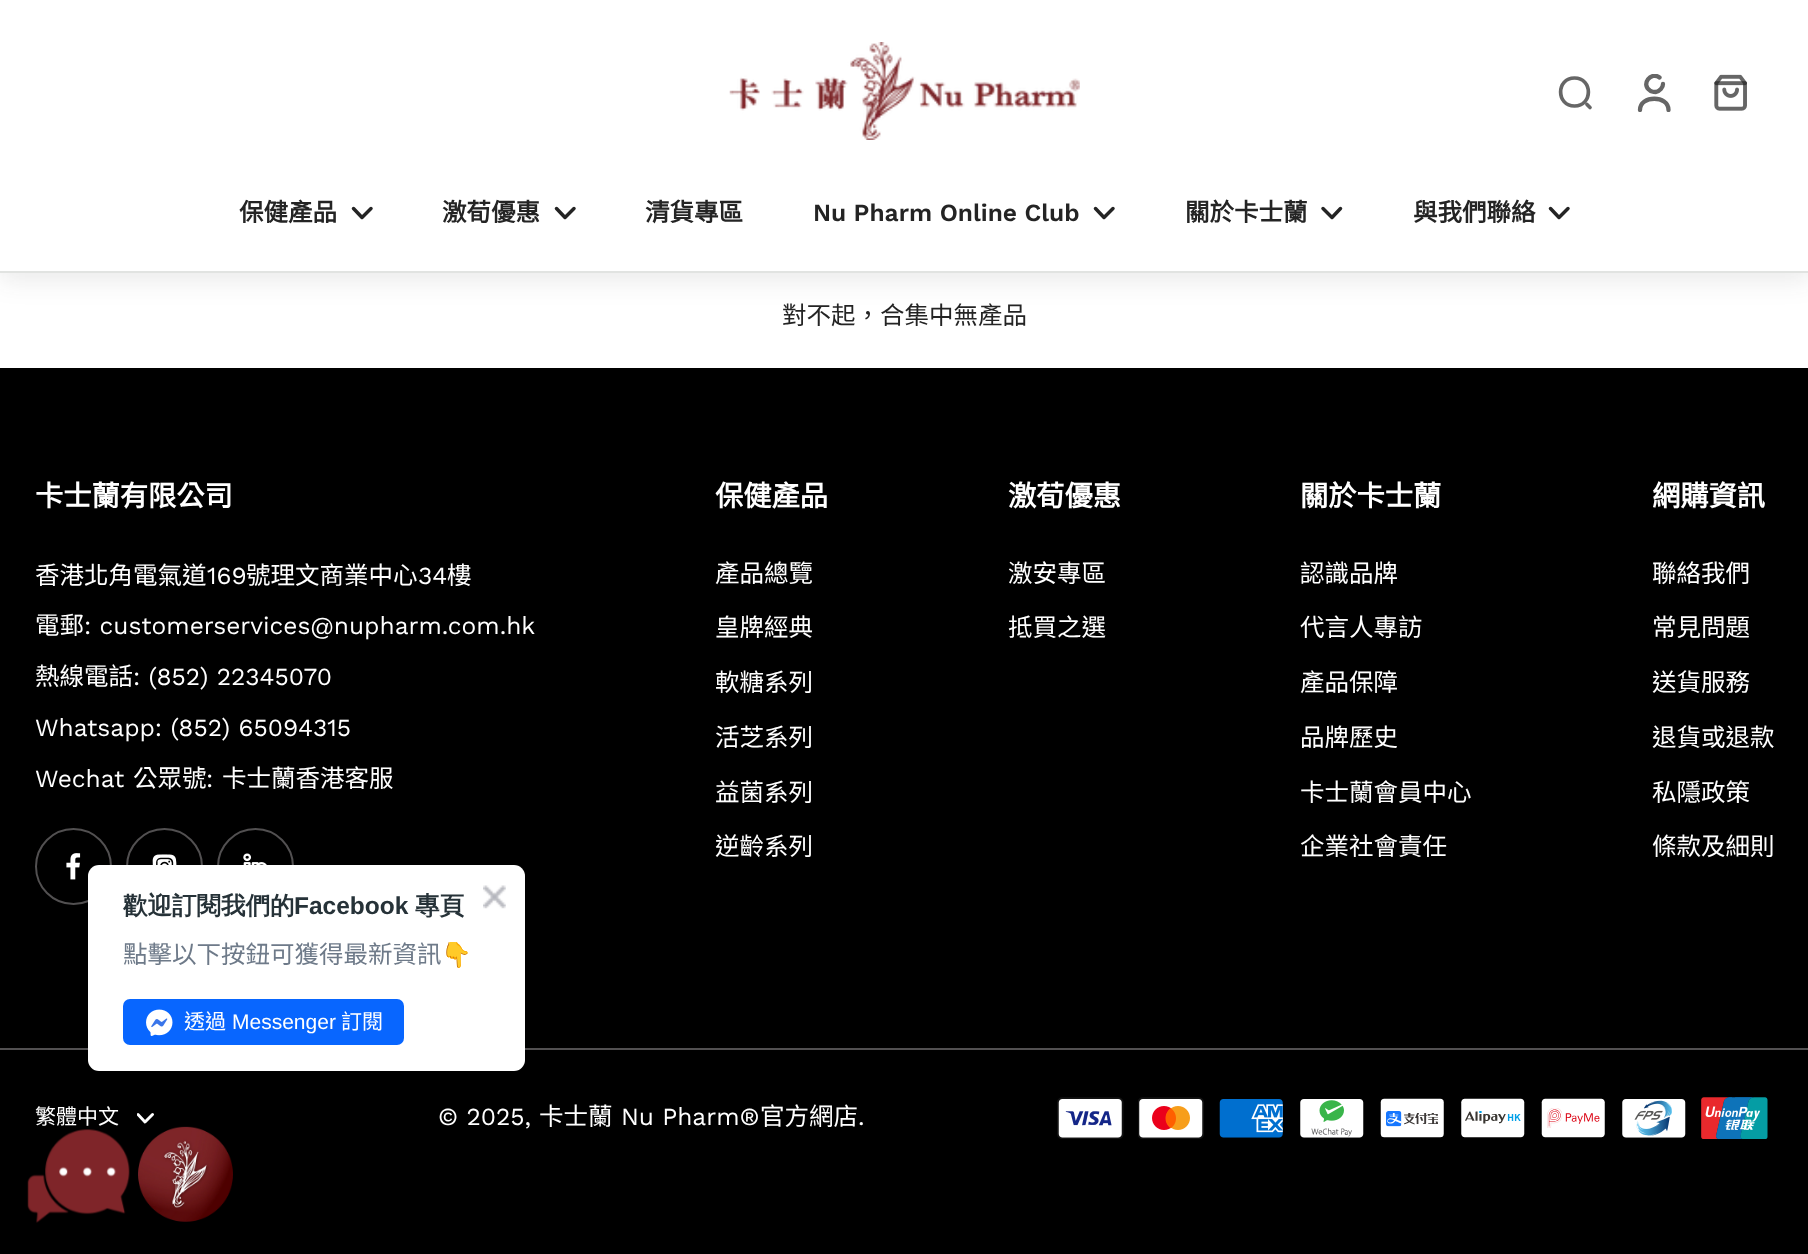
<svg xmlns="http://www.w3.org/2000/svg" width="1808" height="1254">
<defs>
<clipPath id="clip1"><rect x="1635" y="74" width="38" height="38"/></clipPath>
<clipPath id="clip2"><rect x="137" y="1110" width="17" height="17"/></clipPath>
</defs>
<rect width="100%" height="100%" fill="#fff"/>
<rect y="9" width="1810" height="271" fill="#2424241a" filter="blur(13px)"/>
<rect width="1808" height="271" fill="#fff"/>
<image x="729" y="42" width="351" height="98" href="media/1.png"/>
<path d="M1574.5 106c18.5 0 18.5-28 0-28c-18.5 0-18.5 28 0 28zm15.5 1.5l-3-3" fill="none" stroke="#666" stroke-width="3.7" stroke-linecap="round" stroke-linejoin="round"/>
<g clip-path="url(#clip1)">
<path d="M1659.5 77.5c-8.5-6.5-19 7-9.5 13c1.5 1.5 4 1.5 6 1.5c4-1 7-4.5 7-8m5.5 26c0-15-28.5-15-28.5 0" fill="none" stroke="#666" stroke-width="4.3" stroke-linecap="round" stroke-linejoin="round"/>
</g>
<image x="1714" y="74" width="33" height="37" href="media/2.png"/>
<text x="239" y="221" style="font-family:Noto Sans CJK TC;font-size:24.5px;font-weight:bold;fill:#242424">保健產品</text>
<path d="M353.5 208.5l8.5 9l9-9" fill="none" stroke="#242424" stroke-width="3.5" stroke-linecap="round" stroke-linejoin="round"/>
<text x="442" y="221" style="font-family:Noto Sans CJK TC;font-size:24.5px;font-weight:bold;fill:#242424">激荀優惠</text>
<path d="M556.5 208.5l8.5 9l9-9" fill="none" stroke="#242424" stroke-width="3.5" stroke-linecap="round" stroke-linejoin="round"/>
<text x="645" y="221" style="font-family:Noto Sans CJK TC;font-size:24.5px;font-weight:bold;fill:#242424">清貨專區</text>
<text x="813" y="221" style="font-family:Work Sans;font-size:24.5px;font-weight:600;fill:#242424">Nu Pharm Online Club</text>
<path d="M1095.5 208.5l8.5 9l9-9" fill="none" stroke="#242424" stroke-width="3.5" stroke-linecap="round" stroke-linejoin="round"/>
<text x="1185" y="221" style="font-family:Noto Sans CJK TC;font-size:24.5px;font-weight:bold;fill:#242424">關於卡士蘭</text>
<path d="M1323 208.5l9 9l8.5-9" fill="none" stroke="#242424" stroke-width="3.5" stroke-linecap="round" stroke-linejoin="round"/>
<text x="1413" y="221" style="font-family:Noto Sans CJK TC;font-size:24.5px;font-weight:bold;fill:#242424">與我們聯絡</text>
<path d="M1550.5 208.5l8.5 9l9-9" fill="none" stroke="#242424" stroke-width="3.5" stroke-linecap="round" stroke-linejoin="round"/>
<rect y="271" width="1808" height="2" fill="#e1e3e1"/>
<text x="782" y="324" style="font-family:Noto Sans CJK TC;font-size:24.5px;fill:#242424">對不起，合集中無產品</text>
<rect y="368" width="1808" height="886" fill="#000"/>
<rect y="1048" width="1808" height="2" fill="#525051"/>
<text x="35" y="506" style="font-family:Noto Sans CJK TC;font-size:28.25px;font-weight:bold;fill:#fff">卡士蘭有限公司</text>
<text x="35" y="584" style="font-family:Noto Sans CJK TC;font-size:24.5px;fill:#fff">香港北角電氣道</text>
<text x="207" y="584" style="font-family:Work Sans;font-size:24.5px;fill:#fff">169</text>
<text x="246" y="584" style="font-family:Noto Sans CJK TC;font-size:24.5px;fill:#fff">號理文商業中心</text>
<text x="418" y="584" style="font-family:Work Sans;font-size:24.5px;fill:#fff">34</text>
<text x="447" y="584" style="font-family:Noto Sans CJK TC;font-size:24.5px;fill:#fff">樓</text>
<text x="35" y="634" style="font-family:Noto Sans CJK TC;font-size:24.5px;fill:#fff">電郵</text>
<text x="84" y="634" style="font-family:Work Sans;font-size:24.5px;fill:#fff">: customerservices@nupharm.com.hk</text>
<text x="35" y="685" style="font-family:Noto Sans CJK TC;font-size:24.5px;fill:#fff">熱線電話</text>
<text x="133" y="685" style="font-family:Work Sans;font-size:24.5px;fill:#fff">: (852) 22345070</text>
<text x="35" y="736" style="font-family:Work Sans;font-size:24.5px;fill:#fff">Whatsapp: (852) 65094315</text>
<text x="35" y="787" style="font-family:Work Sans;font-size:24.5px;fill:#fff">Wechat</text>
<text x="133" y="787" style="font-family:Noto Sans CJK TC;font-size:24.5px;fill:#fff">公眾號</text>
<text x="206" y="787" style="font-family:Work Sans;font-size:24.5px;fill:#fff">:</text>
<text x="222" y="787" style="font-family:Noto Sans CJK TC;font-size:24.5px;fill:#fff">卡士蘭香港客服</text>
<circle cx="73.5" cy="866.5" r="37.5" fill="none" stroke="#525051" stroke-width="2"/>
<image x="66" y="853" width="15" height="27" href="media/3.png"/>
<circle cx="164.5" cy="866.5" r="37.5" fill="none" stroke="#525051" stroke-width="2"/>
<image x="152" y="854" width="25" height="11" href="media/4.png"/>
<circle cx="255.5" cy="866.5" r="37.5" fill="none" stroke="#525051" stroke-width="2"/>
<image x="243" y="853" width="24" height="12" href="media/5.png"/>
<text x="715" y="506" style="font-family:Noto Sans CJK TC;font-size:28.25px;font-weight:bold;fill:#fff">保健產品</text>
<text x="715" y="582" style="font-family:Noto Sans CJK TC;font-size:24.5px;fill:#fff">產品總覽</text>
<text x="715" y="636" style="font-family:Noto Sans CJK TC;font-size:24.5px;fill:#fff">皇牌經典</text>
<text x="715" y="691" style="font-family:Noto Sans CJK TC;font-size:24.5px;fill:#fff">軟糖系列</text>
<text x="715" y="746" style="font-family:Noto Sans CJK TC;font-size:24.5px;fill:#fff">活芝系列</text>
<text x="715" y="801" style="font-family:Noto Sans CJK TC;font-size:24.5px;fill:#fff">益菌系列</text>
<text x="715" y="855" style="font-family:Noto Sans CJK TC;font-size:24.5px;fill:#fff">逆齡系列</text>
<text x="1008" y="506" style="font-family:Noto Sans CJK TC;font-size:28.25px;font-weight:bold;fill:#fff">激荀優惠</text>
<text x="1008" y="582" style="font-family:Noto Sans CJK TC;font-size:24.5px;fill:#fff">激安專區</text>
<text x="1008" y="636" style="font-family:Noto Sans CJK TC;font-size:24.5px;fill:#fff">抵買之選</text>
<text x="1300" y="506" style="font-family:Noto Sans CJK TC;font-size:28.25px;font-weight:bold;fill:#fff">關於卡士蘭</text>
<text x="1300" y="582" style="font-family:Noto Sans CJK TC;font-size:24.5px;fill:#fff">認識品牌</text>
<text x="1300" y="636" style="font-family:Noto Sans CJK TC;font-size:24.5px;fill:#fff">代言人專訪</text>
<text x="1300" y="691" style="font-family:Noto Sans CJK TC;font-size:24.5px;fill:#fff">產品保障</text>
<text x="1300" y="746" style="font-family:Noto Sans CJK TC;font-size:24.5px;fill:#fff">品牌歷史</text>
<text x="1300" y="801" style="font-family:Noto Sans CJK TC;font-size:24.5px;fill:#fff">卡士蘭會員中心</text>
<text x="1300" y="855" style="font-family:Noto Sans CJK TC;font-size:24.5px;fill:#fff">企業社會責任</text>
<text x="1652" y="506" style="font-family:Noto Sans CJK TC;font-size:28.25px;font-weight:bold;fill:#fff">網購資訊</text>
<text x="1652" y="582" style="font-family:Noto Sans CJK TC;font-size:24.5px;fill:#fff">聯絡我們</text>
<text x="1652" y="636" style="font-family:Noto Sans CJK TC;font-size:24.5px;fill:#fff">常見問題</text>
<text x="1652" y="691" style="font-family:Noto Sans CJK TC;font-size:24.5px;fill:#fff">送貨服務</text>
<text x="1652" y="746" style="font-family:Noto Sans CJK TC;font-size:24.5px;fill:#fff">退貨或退款</text>
<text x="1652" y="801" style="font-family:Noto Sans CJK TC;font-size:24.5px;fill:#fff">私隱政策</text>
<text x="1652" y="855" style="font-family:Noto Sans CJK TC;font-size:24.5px;fill:#fff">條款及細則</text>
<text x="35" y="1124" style="font-family:Noto Sans CJK TC;font-size:21px;fill:#fff">繁體中文</text>
<g clip-path="url(#clip2)">
<path d="M138 1114.5l7 7.5l7.5-7.5" fill="none" stroke="#fff" stroke-width="2.9" stroke-linecap="round" stroke-linejoin="round"/>
</g>
<text x="438" y="1125" style="font-family:Work Sans;font-size:24.5px;fill:#fff">© 2025,</text>
<text x="539" y="1125" style="font-family:Noto Sans CJK TC;font-size:24.5px;fill:#fff">卡士蘭</text>
<text x="621" y="1125" style="font-family:Work Sans;font-size:24.5px;fill:#fff">Nu Pharm®</text>
<text x="760" y="1125" style="font-family:Noto Sans CJK TC;font-size:24.5px;fill:#fff">官方網店</text>
<text x="858" y="1125" style="font-family:Work Sans;font-size:24.5px;fill:#fff">.</text>
<image x="1057" y="1097" width="67" height="42" href="media/6.png"/>
<image x="1138" y="1097" width="66" height="42" href="media/7.png"/>
<image x="1219" y="1099" width="64" height="39" href="media/8.png"/>
<image x="1300" y="1099" width="64" height="39" href="media/9.png"/>
<image x="1380" y="1098" width="64" height="40" href="media/10.png"/>
<image x="1461" y="1098" width="64" height="40" href="media/11.png"/>
<image x="1541" y="1098" width="64" height="40" href="media/12.png"/>
<image x="1622" y="1099" width="64" height="39" href="media/13.png"/>
<image x="1701" y="1097" width="67" height="42" href="media/14.png"/>
<rect x="88" y="865" width="437" height="206" rx="11" fill="#fff"/>
<text x="123" y="914" style="font-family:WenQuanYi Zen Hei;font-size:24.5px;font-weight:bold;fill:#263238">歡迎訂閱我們的</text>
<text x="294" y="914" style="font-family:Liberation Sans;font-size:24.5px;font-weight:bold;fill:#263238">Facebook</text>
<text x="415" y="914" style="font-family:WenQuanYi Zen Hei;font-size:24.5px;font-weight:bold;fill:#263238">專頁</text>
<image x="483" y="885" width="23" height="24" href="media/15.png"/>
<text x="123" y="963" style="font-family:Noto Sans CJK TC;font-size:24.5px;fill:#6e7a89">點擊以下按鈕可獲得最新資訊</text>
<text x="441" y="963" style="font-family:Noto Color Emoji;font-size:24.5px;fill:#6e7a89">👇</text>
<rect x="123" y="999" width="281" height="46" rx="7" fill="#0866ff"/>
<image x="146" y="1009" width="27" height="27" href="media/16.png"/>
<text x="184" y="1029" style="font-family:Noto Sans CJK TC;font-size:21px;fill:#fff">透過</text>
<text x="232" y="1029" style="font-family:Liberation Sans;font-size:21px;fill:#fff">Messenger</text>
<text x="341" y="1029" style="font-family:Noto Sans CJK TC;font-size:21px;fill:#fff">訂閱</text>
<image x="27" y="1129" width="103" height="94" href="media/17.png"/>
<image x="138" y="1126" width="95" height="96" href="media/18.png"/>
</svg>
